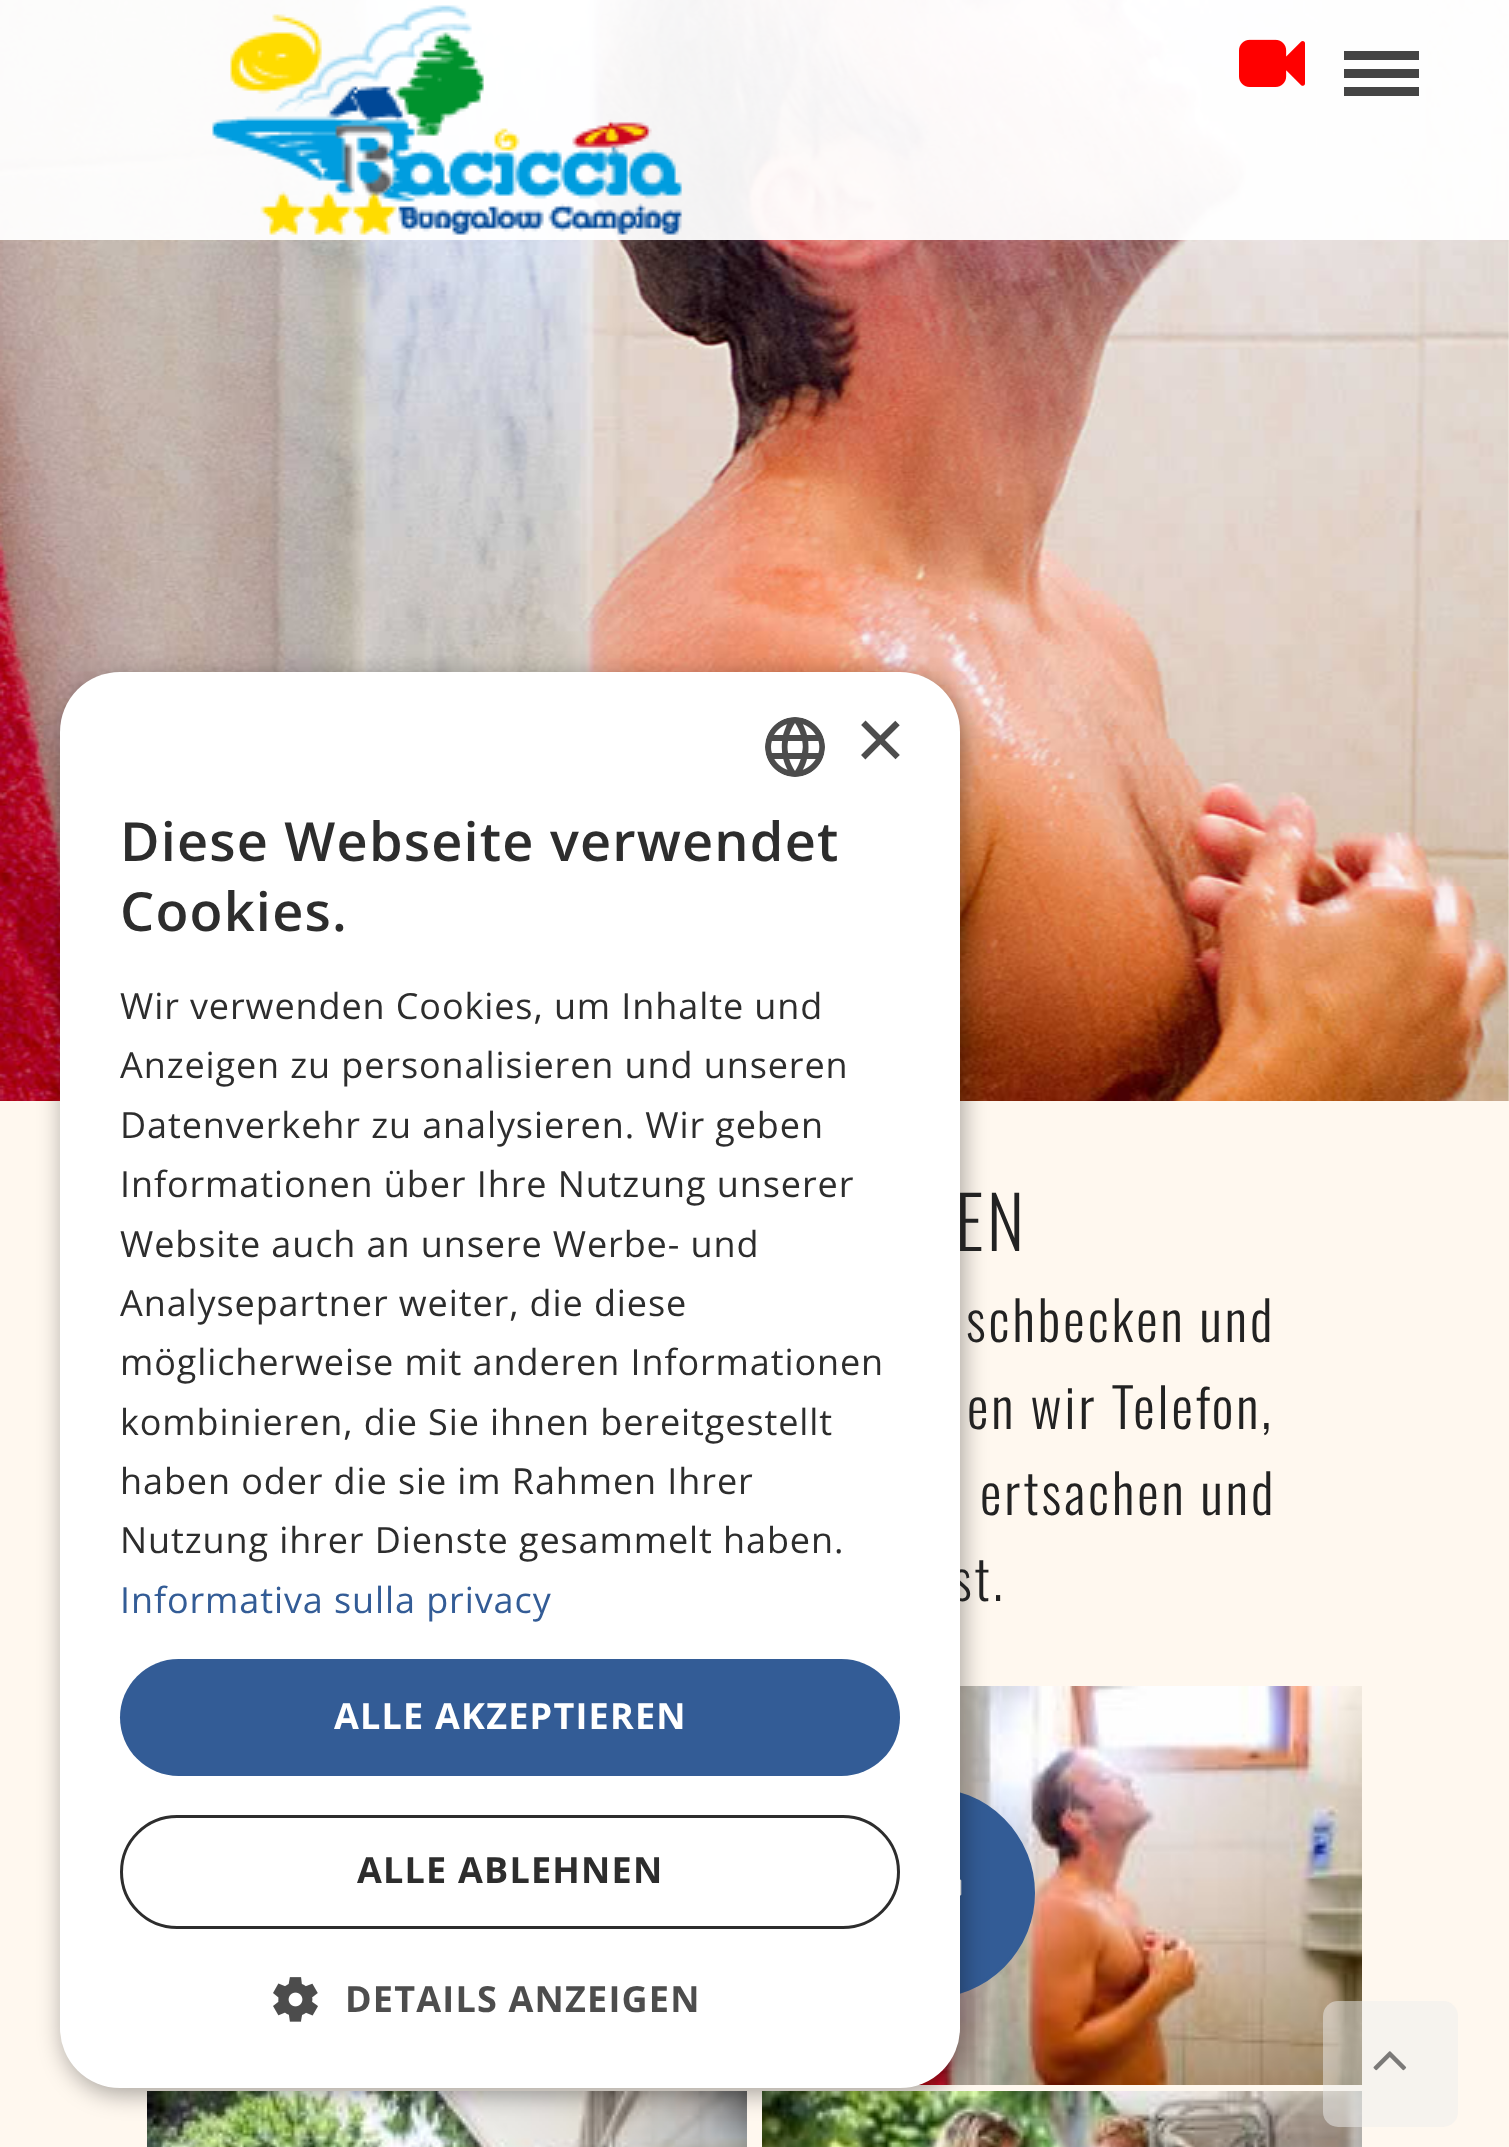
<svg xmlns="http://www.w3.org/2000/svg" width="1509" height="2147">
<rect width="100%" height="100%" fill="#fff8ef"/>
<image x="0" y="0" width="1509" height="1101" href="media/5.png"/>
<image x="918" y="1686" width="444" height="399" href="media/6.png"/>
<image x="147" y="2091" width="600" height="56" href="media/7.png"/>
<image x="762" y="2091" width="600" height="56" href="media/8.png"/>
<circle cx="930" cy="1893" r="103.5" fill="#335c96" stroke="#335c96" stroke-width="3"/>
<image x="960" y="1879" width="2" height="17" href="media/10.png"/>
<rect x="63" y="678" width="900" height="1416" rx="60" fill="#00000059" filter="blur(12px)"/>
<text x="955" y="1251" style="font-family:Oswald;font-size:72px;font-weight:300;letter-spacing:3px;fill:#222">EN</text>
<text x="952" y="1601" style="font-family:Oswald;font-size:54px;font-weight:300;letter-spacing:3px;fill:#222">st.</text>
<rect x="60" y="672" width="900" height="1416" rx="60" fill="#fff"/>
<image x="765" y="717" width="60" height="60" href="media/1.png"/>
<text x="855" y="769" style="font-family:Liberation Sans;font-size:87px;fill:#4d4d4d">×</text>
<text x="120" y="861" style="font-family:Open Sans;font-size:54px;font-weight:600;letter-spacing:1.2px;fill:#2d2d2d">Diese Webseite verwendet</text>
<text x="120" y="931" style="font-family:Open Sans;font-size:54px;font-weight:600;letter-spacing:1.2px;fill:#2d2d2d">Cookies.</text>
<text x="120" y="1019" style="font-family:Open Sans;font-size:36px;letter-spacing:0.9px;fill:#2d2d2d">Wir verwenden Cookies, um Inhalte und</text>
<text x="120" y="1078" style="font-family:Open Sans;font-size:36px;letter-spacing:0.9px;fill:#2d2d2d">Anzeigen zu personalisieren und unseren</text>
<text x="120" y="1138" style="font-family:Open Sans;font-size:36px;letter-spacing:0.9px;fill:#2d2d2d">Datenverkehr zu analysieren. Wir geben</text>
<text x="120" y="1197" style="font-family:Open Sans;font-size:36px;letter-spacing:0.9px;fill:#2d2d2d">Informationen über Ihre Nutzung unserer</text>
<text x="120" y="1257" style="font-family:Open Sans;font-size:36px;letter-spacing:0.9px;fill:#2d2d2d">Website auch an unsere Werbe- und</text>
<text x="120" y="1316" style="font-family:Open Sans;font-size:36px;letter-spacing:0.9px;fill:#2d2d2d">Analysepartner weiter, die diese</text>
<text x="120" y="1375" style="font-family:Open Sans;font-size:36px;letter-spacing:0.9px;fill:#2d2d2d">möglicherweise mit anderen Informationen</text>
<text x="120" y="1435" style="font-family:Open Sans;font-size:36px;letter-spacing:0.9px;fill:#2d2d2d">kombinieren, die Sie ihnen bereitgestellt</text>
<text x="120" y="1494" style="font-family:Open Sans;font-size:36px;letter-spacing:0.9px;fill:#2d2d2d">haben oder die sie im Rahmen Ihrer</text>
<text x="120" y="1553" style="font-family:Open Sans;font-size:36px;letter-spacing:0.9px;fill:#2d2d2d">Nutzung ihrer Dienste gesammelt haben.</text>
<text x="120" y="1613" style="font-family:Open Sans;font-size:36px;letter-spacing:0.9px;fill:#335c96">Informativa sulla privacy</text>
<rect x="120" y="1659" width="780" height="117" rx="58.5" fill="#335c96"/>
<text x="334" y="1729" style="font-family:Open Sans;font-size:36px;font-weight:bold;letter-spacing:1.2px;fill:#fff">ALLE AKZEPTIEREN</text>
<rect x="121.5" y="1816.5" width="777" height="111" rx="55.5" fill="none" stroke="#2d2d2d" stroke-width="3"/>
<text x="357" y="1883" style="font-family:Open Sans;font-size:36px;font-weight:bold;letter-spacing:1.2px;fill:#2d2d2d">ALLE ABLEHNEN</text>
<image x="273" y="1977" width="45" height="45" href="media/2.png"/>
<text x="345" y="2012" style="font-family:Open Sans;font-size:36px;font-weight:bold;letter-spacing:1.2px;fill:#4d4d4d">DETAILS ANZEIGEN</text>
<rect width="1509" height="240" fill="#fffffff2"/>
<image x="212" y="5" width="470" height="230" href="media/3.png"/>
<image x="1239" y="39" width="66" height="48" href="media/4.png"/>
<rect x="1344" y="51" width="75" height="9" fill="#444"/>
<rect x="1344" y="69" width="75" height="9" fill="#444"/>
<rect x="1344" y="87" width="75" height="9" fill="#444"/>
<text x="966" y="1342" style="font-family:Oswald;font-size:54px;font-weight:300;letter-spacing:3px;fill:#222">schbecken und</text>
<text x="967" y="1429" style="font-family:Oswald;font-size:54px;font-weight:300;letter-spacing:3px;fill:#222">en wir Telefon,</text>
<text x="980" y="1515" style="font-family:Oswald;font-size:54px;font-weight:300;letter-spacing:3px;fill:#222">ertsachen und</text>
<rect x="1323" y="2001" width="135" height="126" rx="15" fill="#eeeeee80"/>
<image x="1373" y="2051" width="34" height="20" href="media/9.png"/>
</svg>
